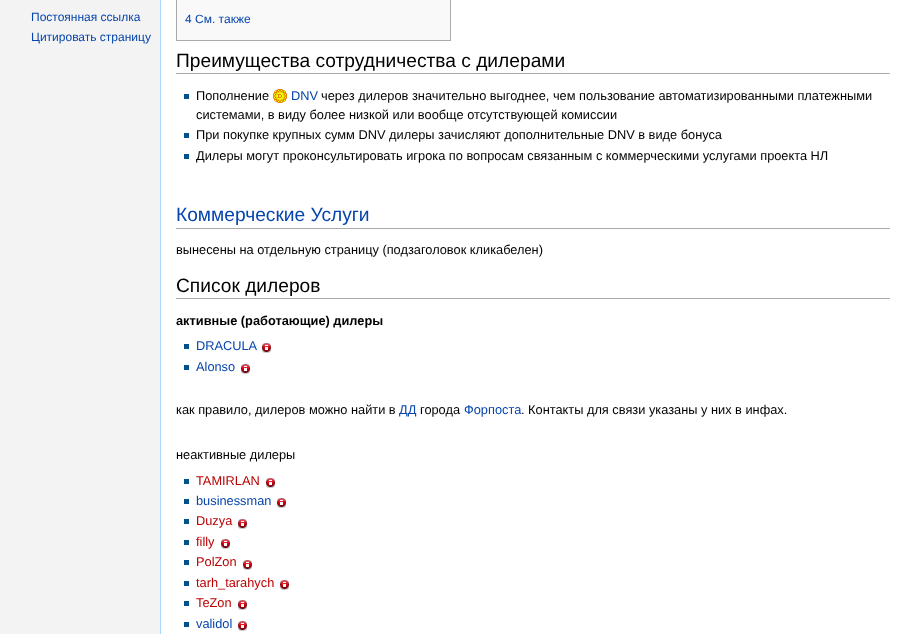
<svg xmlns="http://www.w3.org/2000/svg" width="906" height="634">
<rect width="100%" height="100%" fill="#f3f3f3"/>
<text x="31" y="21" style="font-family:Liberation Sans;font-size:12px;fill:#0645ad">Постоянная ссылка</text>
<text x="31" y="41" style="font-family:Liberation Sans;font-size:12px;fill:#0645ad">Цитировать страницу</text>
<rect x="161" width="745" height="634" fill="#fff"/>
<rect x="160" width="1" height="634" fill="#a7d7f9"/>
<rect x="176.5" y="-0.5" width="274" height="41" fill="#f9f9f9" stroke="#aaa"/>
<text x="185" y="23" style="font-family:Liberation Sans;font-size:12px;fill:#0645ad">4 См. также</text>
<rect x="176" y="73" width="714" height="1" fill="#aaa"/>
<text x="176" y="67" style="font-family:Liberation Sans;font-size:19.2px;fill:#000">Преимущества сотрудничества с дилерами</text>
<rect x="184" y="94" width="5" height="5" fill="#00528c"/>
<text x="196" y="100" style="font-family:Liberation Sans;font-size:12.8px;fill:#000">Пополнение</text>
<image x="273" y="89" width="14" height="14" href="media/1.png"/>
<text x="291" y="100" style="font-family:Liberation Sans;font-size:12.8px;fill:#0645ad">DNV</text>
<text x="321" y="100" style="font-family:Liberation Sans;font-size:12.8px;fill:#000">через дилеров значительно выгоднее, чем пользование автоматизированными платежными</text>
<text x="196" y="119" style="font-family:Liberation Sans;font-size:12.8px;fill:#000">системами, в виду более низкой или вообще отсутствующей комиссии</text>
<rect x="184" y="133" width="5" height="5" fill="#00528c"/>
<text x="196" y="139" style="font-family:Liberation Sans;font-size:12.8px;fill:#000">При покупке крупных сумм DNV дилеры зачисляют дополнительные DNV в виде бонуса</text>
<rect x="184" y="154" width="5" height="5" fill="#00528c"/>
<text x="196" y="160" style="font-family:Liberation Sans;font-size:12.8px;fill:#000">Дилеры могут проконсультировать игрока по вопросам связанным с коммерческими услугами проекта НЛ</text>
<rect x="176" y="228" width="714" height="1" fill="#aaa"/>
<text x="176" y="221" style="font-family:Liberation Sans;font-size:19.2px;fill:#0645ad">Коммерческие Услуги</text>
<text x="176" y="254" style="font-family:Liberation Sans;font-size:12.8px;fill:#000">вынесены на отдельную страницу (подзаголовок кликабелен)</text>
<rect x="176" y="298" width="714" height="1" fill="#aaa"/>
<text x="176" y="292" style="font-family:Liberation Sans;font-size:19.2px;fill:#000">Список дилеров</text>
<text x="176" y="325" style="font-family:Liberation Sans;font-size:12.8px;font-weight:bold;fill:#000">активные (работающие) дилеры</text>
<rect x="184" y="344" width="5" height="5" fill="#00528c"/>
<text x="196" y="350" style="font-family:Liberation Sans;font-size:12.8px;fill:#0645ad">DRACULA</text>
<image x="262" y="343" width="9" height="10" href="media/2.png"/>
<rect x="184" y="365" width="5" height="5" fill="#00528c"/>
<text x="196" y="371" style="font-family:Liberation Sans;font-size:12.8px;fill:#0645ad">Alonso</text>
<image x="241" y="364" width="9" height="10" href="media/2.png"/>
<text x="176" y="414" style="font-family:Liberation Sans;font-size:12.8px;fill:#000">как правило, дилеров можно найти в</text>
<text x="399" y="414" style="font-family:Liberation Sans;font-size:12.8px;fill:#0645ad">ДД</text>
<text x="420" y="414" style="font-family:Liberation Sans;font-size:12.8px;fill:#000">города</text>
<text x="464" y="414" style="font-family:Liberation Sans;font-size:12.8px;fill:#0645ad">Форпоста</text>
<text x="521" y="414" style="font-family:Liberation Sans;font-size:12.8px;fill:#000">. Контакты для связи указаны у них в инфах.</text>
<text x="176" y="459" style="font-family:Liberation Sans;font-size:12.8px;fill:#000">неактивные дилеры</text>
<rect x="184" y="479" width="5" height="5" fill="#00528c"/>
<text x="196" y="485" style="font-family:Liberation Sans;font-size:12.8px;fill:#ba0000">TAMIRLAN</text>
<image x="266" y="478" width="9" height="10" href="media/2.png"/>
<rect x="184" y="499" width="5" height="5" fill="#00528c"/>
<text x="196" y="505" style="font-family:Liberation Sans;font-size:12.8px;fill:#0645ad">businessman</text>
<image x="277" y="498" width="9" height="10" href="media/2.png"/>
<rect x="184" y="519" width="5" height="5" fill="#00528c"/>
<text x="196" y="525" style="font-family:Liberation Sans;font-size:12.8px;fill:#ba0000">Duzya</text>
<image x="238" y="519" width="9" height="10" href="media/2.png"/>
<rect x="184" y="540" width="5" height="5" fill="#00528c"/>
<text x="196" y="546" style="font-family:Liberation Sans;font-size:12.8px;fill:#ba0000">filly</text>
<image x="221" y="539" width="9" height="10" href="media/2.png"/>
<rect x="184" y="560" width="5" height="5" fill="#00528c"/>
<text x="196" y="566" style="font-family:Liberation Sans;font-size:12.8px;fill:#ba0000">PolZon</text>
<image x="243" y="560" width="9" height="10" href="media/2.png"/>
<rect x="184" y="581" width="5" height="5" fill="#00528c"/>
<text x="196" y="587" style="font-family:Liberation Sans;font-size:12.8px;fill:#ba0000">tarh_tarahych</text>
<image x="280" y="580" width="9" height="10" href="media/2.png"/>
<rect x="184" y="601" width="5" height="5" fill="#00528c"/>
<text x="196" y="607" style="font-family:Liberation Sans;font-size:12.8px;fill:#ba0000">TeZon</text>
<image x="238" y="600" width="9" height="10" href="media/2.png"/>
<rect x="184" y="622" width="5" height="5" fill="#00528c"/>
<text x="196" y="628" style="font-family:Liberation Sans;font-size:12.8px;fill:#0645ad">validol</text>
<image x="238" y="621" width="9" height="10" href="media/2.png"/>
</svg>
